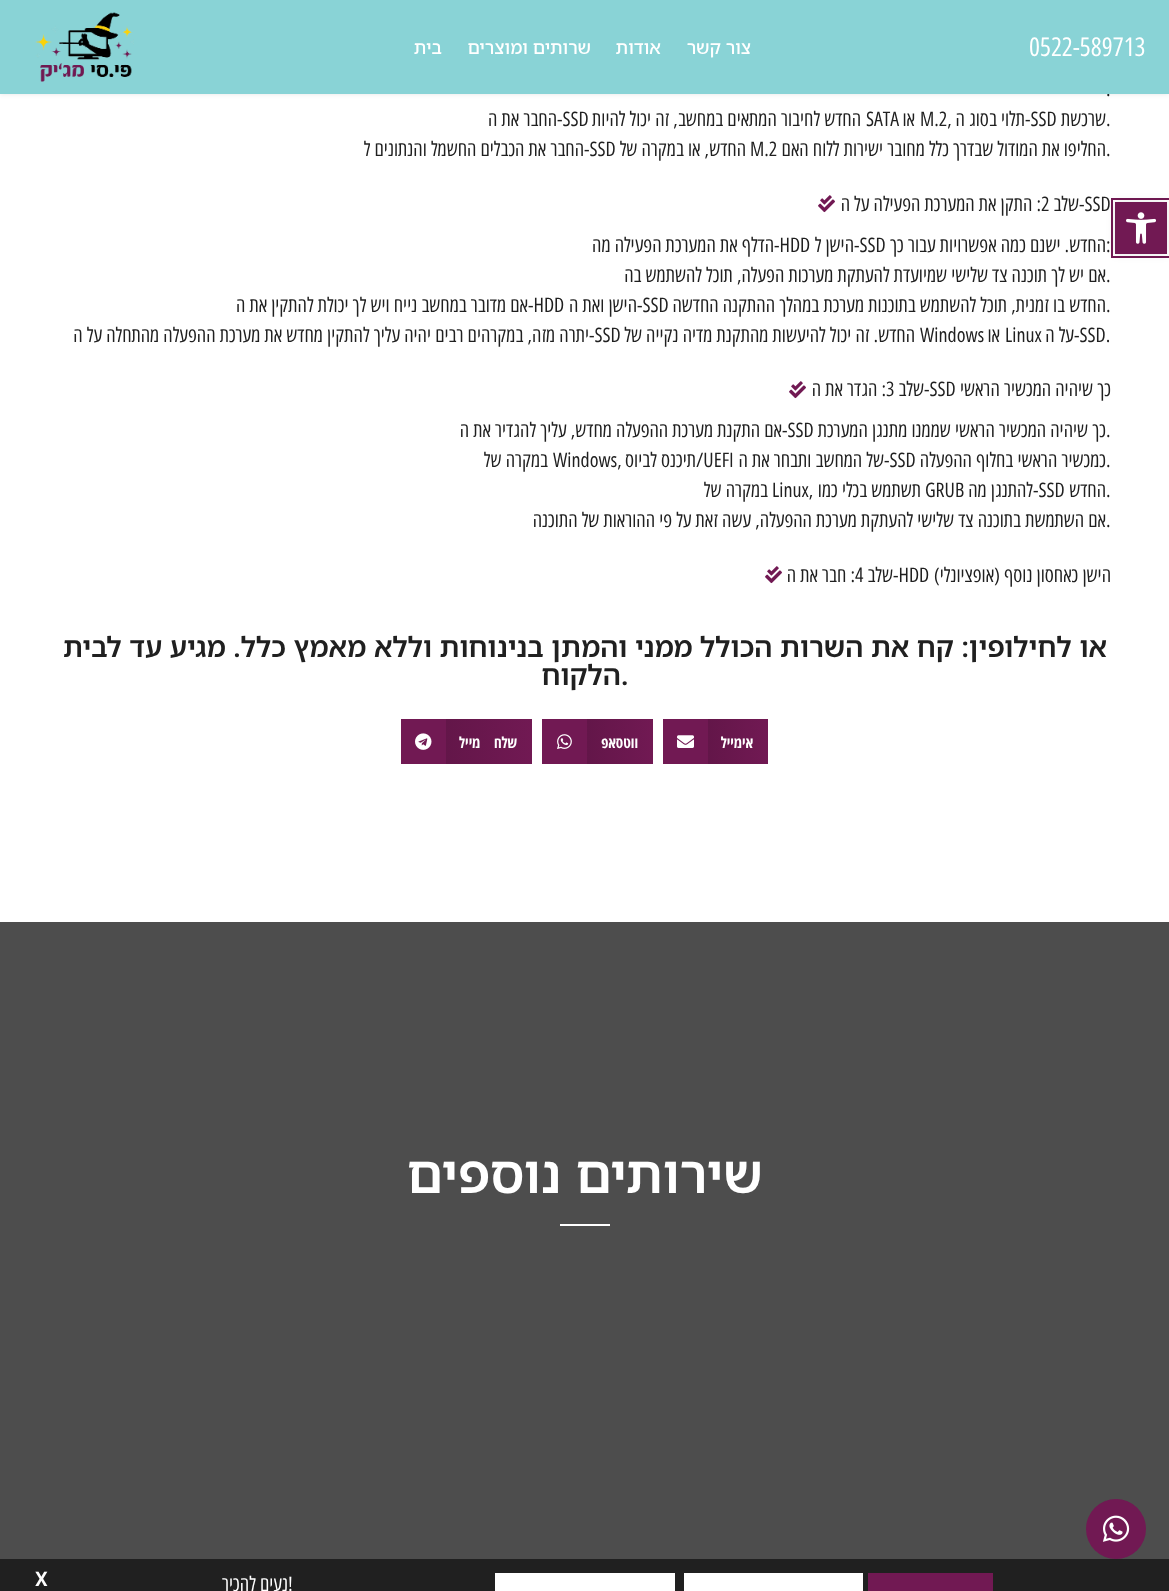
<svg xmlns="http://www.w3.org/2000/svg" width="1169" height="1591">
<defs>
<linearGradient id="g1" gradientUnits="userSpaceOnUse" x1="708" y1="742" x2="768" y2="742"><stop offset="0" stop-color="#631649"/><stop offset="1" stop-color="#711953"/></linearGradient>
<linearGradient id="g2" gradientUnits="userSpaceOnUse" x1="587" y1="742" x2="653" y2="742"><stop offset="0" stop-color="#631649"/><stop offset="1" stop-color="#711953"/></linearGradient>
<linearGradient id="g3" gradientUnits="userSpaceOnUse" x1="446" y1="742" x2="532" y2="742"><stop offset="0" stop-color="#631649"/><stop offset="1" stop-color="#711953"/></linearGradient>
</defs>
<rect width="100%" height="100%" fill="#fff"/>
<rect width="1169" height="94" fill="#0000001a" filter="blur(2.5px)"/>
<text x="1106" y="96" style="font-family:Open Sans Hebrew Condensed;font-size:20px;fill:#202020">.</text>
<rect width="1169" height="94" fill="#89d3d6"/>
<text x="1029" y="56" style="font-family:Open Sans Hebrew Condensed;font-size:26px;fill:#fff">0522-589713</text>
<text x="751" y="54" style="font-family:Noto Sans Hebrew;font-size:18px;font-weight:500;direction:rtl;fill:#fff">צור קשר</text>
<text x="661" y="54" style="font-family:Noto Sans Hebrew;font-size:18px;font-weight:500;direction:rtl;fill:#fff">אודות</text>
<text x="591" y="54" style="font-family:Noto Sans Hebrew;font-size:18px;font-weight:500;direction:rtl;fill:#fff">שרותים ומוצרים</text>
<text x="442" y="54" style="font-family:Noto Sans Hebrew;font-size:18px;font-weight:500;direction:rtl;fill:#fff">בית</text>
<image x="35" y="12" width="99" height="70" href="media/1.png"/>
<rect x="1112" y="199" width="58" height="58" fill="none" stroke="#711953" stroke-width="2"/>
<rect x="1115" y="202" width="52" height="52" fill="#0000001a" filter="blur(5px)"/>
<rect x="1115" y="202" width="52" height="52" fill="#711953"/>
<image x="1126" y="212" width="30" height="32" href="media/2.png"/>
<text x="1106" y="126" style="font-family:Open Sans Hebrew Condensed;font-size:20px;fill:#202020">.</text>
<text x="1106" y="126" style="font-family:Open Sans Hebrew Condensed;font-size:20px;direction:rtl;fill:#202020">שרכשת</text>
<text x="1025" y="126" style="font-family:Open Sans Hebrew Condensed;font-size:20px;fill:#202020">-SSD</text>
<text x="1025" y="126" style="font-family:Open Sans Hebrew Condensed;font-size:20px;direction:rtl;fill:#202020">תלוי בסוג ה</text>
<text x="920" y="126" style="font-family:Open Sans Hebrew Condensed;font-size:20px;fill:#202020">M.2,</text>
<text x="915" y="126" style="font-family:Open Sans Hebrew Condensed;font-size:20px;direction:rtl;fill:#202020">או</text>
<text x="866" y="126" style="font-family:Open Sans Hebrew Condensed;font-size:20px;fill:#202020">SATA</text>
<text x="861" y="126" style="font-family:Open Sans Hebrew Condensed;font-size:20px;direction:rtl;fill:#202020">החדש לחיבור המתאים במחשב, זה יכול להיות</text>
<text x="557" y="126" style="font-family:Open Sans Hebrew Condensed;font-size:20px;fill:#202020">-SSD</text>
<text x="557" y="126" style="font-family:Open Sans Hebrew Condensed;font-size:20px;direction:rtl;fill:#202020">החבר את ה</text>
<text x="1106" y="156" style="font-family:Open Sans Hebrew Condensed;font-size:20px;fill:#202020">.</text>
<text x="1106" y="156" style="font-family:Open Sans Hebrew Condensed;font-size:20px;direction:rtl;fill:#202020">החליפו את המודול שבדרך כלל מחובר ישירות ללוח האם</text>
<text x="750" y="156" style="font-family:Open Sans Hebrew Condensed;font-size:20px;fill:#202020">M.2</text>
<text x="746" y="156" style="font-family:Open Sans Hebrew Condensed;font-size:20px;direction:rtl;fill:#202020">החדש, או במקרה של</text>
<text x="584" y="156" style="font-family:Open Sans Hebrew Condensed;font-size:20px;fill:#202020">-SSD</text>
<text x="584" y="156" style="font-family:Open Sans Hebrew Condensed;font-size:20px;direction:rtl;fill:#202020">החבר את הכבלים החשמל והנתונים ל</text>
<text x="1079" y="211" style="font-family:Open Sans Hebrew Condensed;font-size:20px;fill:#202020">-SSD</text>
<text x="1079" y="211" style="font-family:Open Sans Hebrew Condensed;font-size:20px;direction:rtl;fill:#202020">שלב</text>
<text x="1041" y="211" style="font-family:Open Sans Hebrew Condensed;font-size:20px;fill:#202020">2</text>
<text x="1041" y="211" style="font-family:Open Sans Hebrew Condensed;font-size:20px;direction:rtl;fill:#202020">: התקן את המערכת הפעילה על ה</text>
<image x="818" y="195" width="17" height="18" href="media/3.png"/>
<text x="1106" y="252" style="font-family:Open Sans Hebrew Condensed;font-size:20px;fill:#202020">:</text>
<text x="1106" y="252" style="font-family:Open Sans Hebrew Condensed;font-size:20px;direction:rtl;fill:#202020">החדש. ישנם כמה אפשרויות עבור כך</text>
<text x="854" y="252" style="font-family:Open Sans Hebrew Condensed;font-size:20px;fill:#202020">-SSD</text>
<text x="854" y="252" style="font-family:Open Sans Hebrew Condensed;font-size:20px;direction:rtl;fill:#202020">הישן ל</text>
<text x="774" y="252" style="font-family:Open Sans Hebrew Condensed;font-size:20px;fill:#202020">-HDD</text>
<text x="774" y="252" style="font-family:Open Sans Hebrew Condensed;font-size:20px;direction:rtl;fill:#202020">הדלף את המערכת הפעילה מה</text>
<text x="1106" y="282" style="font-family:Open Sans Hebrew Condensed;font-size:20px;fill:#202020">.</text>
<text x="1106" y="282" style="font-family:Open Sans Hebrew Condensed;font-size:20px;direction:rtl;fill:#202020">אם יש לך תוכנה צד שלישי שמיועדת להעתקת מערכות הפעלה, תוכל להשתמש בה</text>
<text x="1106" y="312" style="font-family:Open Sans Hebrew Condensed;font-size:20px;fill:#202020">.</text>
<text x="1106" y="312" style="font-family:Open Sans Hebrew Condensed;font-size:20px;direction:rtl;fill:#202020">החדש בו זמנית, תוכל להשתמש בתוכנות מערכת במהלך ההתקנה החדשה</text>
<text x="637" y="312" style="font-family:Open Sans Hebrew Condensed;font-size:20px;fill:#202020">-SSD</text>
<text x="637" y="312" style="font-family:Open Sans Hebrew Condensed;font-size:20px;direction:rtl;fill:#202020">הישן ואת ה</text>
<text x="528" y="312" style="font-family:Open Sans Hebrew Condensed;font-size:20px;fill:#202020">-HDD</text>
<text x="528" y="312" style="font-family:Open Sans Hebrew Condensed;font-size:20px;direction:rtl;fill:#202020">אם מדובר במחשב נייח ויש לך יכולת להתקין את ה</text>
<text x="1074" y="342" style="font-family:Open Sans Hebrew Condensed;font-size:20px;fill:#202020">-SSD.</text>
<text x="1074" y="342" style="font-family:Open Sans Hebrew Condensed;font-size:20px;direction:rtl;fill:#202020">על ה</text>
<text x="1005" y="342" style="font-family:Open Sans Hebrew Condensed;font-size:20px;fill:#202020">Linux</text>
<text x="1000" y="342" style="font-family:Open Sans Hebrew Condensed;font-size:20px;direction:rtl;fill:#202020">או</text>
<text x="920" y="342" style="font-family:Open Sans Hebrew Condensed;font-size:20px;fill:#202020">Windows</text>
<text x="915" y="342" style="font-family:Open Sans Hebrew Condensed;font-size:20px;direction:rtl;fill:#202020">החדש. זה יכול להיעשות מהתקנת מדיה נקייה של</text>
<text x="589" y="342" style="font-family:Open Sans Hebrew Condensed;font-size:20px;fill:#202020">-SSD</text>
<text x="589" y="342" style="font-family:Open Sans Hebrew Condensed;font-size:20px;direction:rtl;fill:#202020">יתרה מזה, במקרהים רבים יהיה עליך להתקין מחדש את מערכת ההפעלה מהתחלה על ה</text>
<text x="1111" y="396" style="font-family:Open Sans Hebrew Condensed;font-size:20px;direction:rtl;fill:#202020">כך שיהיה המכשיר הראשי</text>
<text x="924" y="396" style="font-family:Open Sans Hebrew Condensed;font-size:20px;fill:#202020">-SSD</text>
<text x="924" y="396" style="font-family:Open Sans Hebrew Condensed;font-size:20px;direction:rtl;fill:#202020">שלב</text>
<text x="886" y="396" style="font-family:Open Sans Hebrew Condensed;font-size:20px;fill:#202020">3</text>
<text x="886" y="396" style="font-family:Open Sans Hebrew Condensed;font-size:20px;direction:rtl;fill:#202020">: הגדר את ה</text>
<image x="789" y="381" width="17" height="18" href="media/3.png"/>
<text x="1106" y="437" style="font-family:Open Sans Hebrew Condensed;font-size:20px;fill:#202020">.</text>
<text x="1106" y="437" style="font-family:Open Sans Hebrew Condensed;font-size:20px;direction:rtl;fill:#202020">כך שיהיה המכשיר הראשי שממנו מתנגן המערכת</text>
<text x="782" y="437" style="font-family:Open Sans Hebrew Condensed;font-size:20px;fill:#202020">-SSD</text>
<text x="782" y="437" style="font-family:Open Sans Hebrew Condensed;font-size:20px;direction:rtl;fill:#202020">אם התקנת מערכת ההפעלה מחדש, עליך להגדיר את ה</text>
<text x="1106" y="467" style="font-family:Open Sans Hebrew Condensed;font-size:20px;fill:#202020">.</text>
<text x="1106" y="467" style="font-family:Open Sans Hebrew Condensed;font-size:20px;direction:rtl;fill:#202020">כמכשיר הראשי בחלוף ההפעלה</text>
<text x="884" y="467" style="font-family:Open Sans Hebrew Condensed;font-size:20px;fill:#202020">-SSD</text>
<text x="884" y="467" style="font-family:Open Sans Hebrew Condensed;font-size:20px;direction:rtl;fill:#202020">של המחשב ותבחר את ה</text>
<text x="696" y="467" style="font-family:Open Sans Hebrew Condensed;font-size:20px;fill:#202020">/UEFI</text>
<text x="696" y="467" style="font-family:Open Sans Hebrew Condensed;font-size:20px;direction:rtl;fill:#202020">תיכנס לביוס</text>
<text x="553" y="467" style="font-family:Open Sans Hebrew Condensed;font-size:20px;fill:#202020">Windows,</text>
<text x="548" y="467" style="font-family:Open Sans Hebrew Condensed;font-size:20px;direction:rtl;fill:#202020">במקרה של</text>
<text x="1106" y="497" style="font-family:Open Sans Hebrew Condensed;font-size:20px;fill:#202020">.</text>
<text x="1106" y="497" style="font-family:Open Sans Hebrew Condensed;font-size:20px;direction:rtl;fill:#202020">החדש</text>
<text x="1033" y="497" style="font-family:Open Sans Hebrew Condensed;font-size:20px;fill:#202020">-SSD</text>
<text x="1033" y="497" style="font-family:Open Sans Hebrew Condensed;font-size:20px;direction:rtl;fill:#202020">להתנגן מה</text>
<text x="925" y="497" style="font-family:Open Sans Hebrew Condensed;font-size:20px;fill:#202020">GRUB</text>
<text x="921" y="497" style="font-family:Open Sans Hebrew Condensed;font-size:20px;direction:rtl;fill:#202020">תשתמש בכלי כמו</text>
<text x="772" y="497" style="font-family:Open Sans Hebrew Condensed;font-size:20px;fill:#202020">Linux,</text>
<text x="768" y="497" style="font-family:Open Sans Hebrew Condensed;font-size:20px;direction:rtl;fill:#202020">במקרה של</text>
<text x="1106" y="527" style="font-family:Open Sans Hebrew Condensed;font-size:20px;fill:#202020">.</text>
<text x="1106" y="527" style="font-family:Open Sans Hebrew Condensed;font-size:20px;direction:rtl;fill:#202020">אם השתמשת בתוכנה צד שלישי להעתקת מערכת ההפעלה, עשה זאת על פי ההוראות של התוכנה</text>
<text x="1111" y="582" style="font-family:Open Sans Hebrew Condensed;font-size:20px;direction:rtl;fill:#202020">הישן כאחסון נוסף (אופציונלי)</text>
<text x="893" y="582" style="font-family:Open Sans Hebrew Condensed;font-size:20px;fill:#202020">-HDD</text>
<text x="893" y="582" style="font-family:Open Sans Hebrew Condensed;font-size:20px;direction:rtl;fill:#202020">שלב</text>
<text x="855" y="582" style="font-family:Open Sans Hebrew Condensed;font-size:20px;fill:#202020">4</text>
<text x="855" y="582" style="font-family:Open Sans Hebrew Condensed;font-size:20px;direction:rtl;fill:#202020">: חבר את ה</text>
<image x="765" y="566" width="17" height="18" href="media/3.png"/>
<text x="1107" y="657" style="font-family:Noto Sans Hebrew;font-size:28px;font-weight:600;direction:rtl;fill:#202020">או לחילופין: קח את השרות הכולל ממני והמתן בנינוחות וללא מאמץ כלל. מגיע עד לבית</text>
<text x="621" y="685" style="font-family:Noto Sans Hebrew;font-size:28px;font-weight:600;fill:#202020">.</text>
<text x="621" y="685" style="font-family:Noto Sans Hebrew;font-size:28px;font-weight:600;direction:rtl;fill:#202020">הלקוח</text>
<rect x="663" y="719" width="45" height="45" fill="#711953"/>
<rect x="708" y="719" width="60" height="45" fill="url(#g1)"/>
<text x="753" y="748" style="font-family:Open Sans Hebrew Condensed;font-size:15px;font-weight:bold;direction:rtl;fill:#fff">אימייל</text>
<image x="677" y="735" width="17" height="13" href="media/4.png"/>
<rect x="542" y="719" width="45" height="45" fill="#711953"/>
<rect x="587" y="719" width="66" height="45" fill="url(#g2)"/>
<text x="638" y="748" style="font-family:Open Sans Hebrew Condensed;font-size:15px;font-weight:bold;direction:rtl;fill:#fff">ווטסאפ</text>
<image x="557" y="734" width="15" height="15" href="media/5.png"/>
<rect x="401" y="719" width="45" height="45" fill="#711953"/>
<rect x="446" y="719" width="86" height="45" fill="url(#g3)"/>
<text x="517" y="748" word-spacing="10" style="font-family:Open Sans Hebrew Condensed;font-size:15px;font-weight:bold;direction:rtl;fill:#fff">שלח מייל</text>
<image x="415" y="733" width="17" height="17" href="media/6.png"/>
<rect y="922" width="1169" height="637" fill="#4d4d4d"/>
<text x="763" y="1193" style="font-family:Noto Sans Hebrew;font-size:52px;font-weight:600;direction:rtl;fill:#fff">שירותים נוספים</text>
<rect x="560" y="1224" width="50" height="2" fill="#fff"/>
<circle cx="1116" cy="1529" r="30" fill="#711953"/>
<image x="1102" y="1515" width="28" height="27" href="media/7.png"/>
<rect y="1559" width="1169" height="32" fill="#202020"/>
<rect x="868" y="1573" width="125" height="18" fill="#711953"/>
<rect x="684" y="1573" width="179" height="18" fill="#fff"/>
<rect x="495" y="1573" width="180" height="18" fill="#fff"/>
<text x="288" y="1591" style="font-family:Open Sans Hebrew Condensed;font-size:20px;fill:#fff">!</text>
<text x="288" y="1591" style="font-family:Open Sans Hebrew Condensed;font-size:20px;direction:rtl;fill:#fff">נעים להכיר</text>
<text x="35" y="1586" style="font-family:Roboto;font-size:20px;font-weight:600;fill:#fff">X</text>
</svg>
